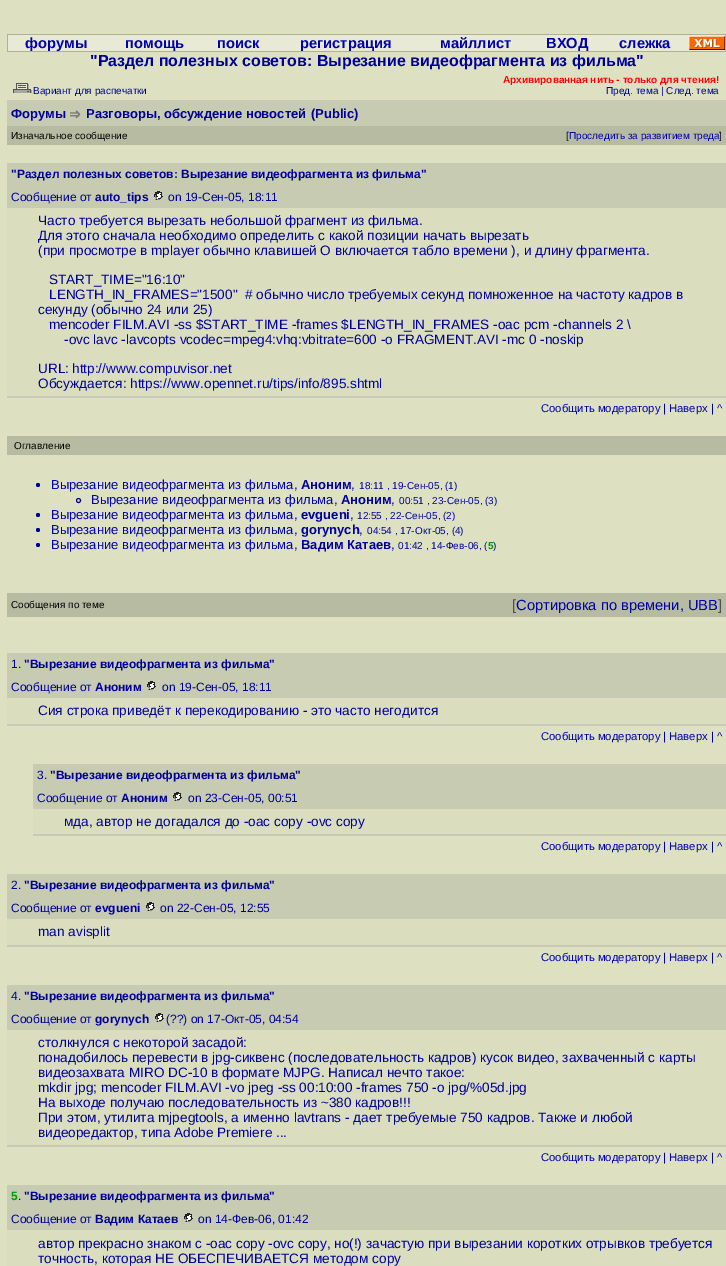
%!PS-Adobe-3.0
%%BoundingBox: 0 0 726 1266
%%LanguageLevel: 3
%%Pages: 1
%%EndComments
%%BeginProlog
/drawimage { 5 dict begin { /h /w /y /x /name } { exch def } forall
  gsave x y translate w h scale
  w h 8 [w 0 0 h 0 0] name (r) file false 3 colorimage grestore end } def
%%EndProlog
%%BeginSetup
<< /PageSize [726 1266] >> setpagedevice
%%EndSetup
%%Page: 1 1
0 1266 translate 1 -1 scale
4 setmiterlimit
0.867 0.882 0.761 setrgbcolor
0 0 726 1266 rectfill
0.69 0.694 0.565 setrgbcolor
7 34 719 18 rectfill
0.914 0.918 0.839 setrgbcolor
8 35 717 16 rectfill
(images/1.raw) 689 36 36 14 drawimage
(images/2.raw) 13 83 19 10 drawimage
0.78 0.796 0.694 setrgbcolor
7 100 719 26 rectfill
(images/3.raw) 70 110 11 8 drawimage
0.718 0.733 0.631 setrgbcolor
7 126 719 19 rectfill
0.78 0.796 0.694 setrgbcolor
7 163 719 45 rectfill
(images/4.raw) 154 191 9 9 drawimage
0.855 0.871 0.749 setrgbcolor
7 208 719 188 rectfill
0.788 0.792 0.714 setrgbcolor
7 396 719 2 rectfill
0.718 0.733 0.631 setrgbcolor
7 436 719 19 rectfill
0 0 0.6 setrgbcolor
newpath 38 485 2 0 360 arc closepath fill
newpath 78.5 500.5 2 0 360 arc closepath stroke
newpath 38 515 2 0 360 arc closepath fill
newpath 38 530 2 0 360 arc closepath fill
newpath 38 545 2 0 360 arc closepath fill
0.718 0.733 0.631 setrgbcolor
7 593 719 24 rectfill
0.78 0.796 0.694 setrgbcolor
7 653 719 45 rectfill
(images/4.raw) 147 681 9 9 drawimage
0.855 0.871 0.749 setrgbcolor
7 698 719 26 rectfill
0.788 0.792 0.714 setrgbcolor
7 724 719 2 rectfill
0.78 0.796 0.694 setrgbcolor
33 764 693 45 rectfill
(images/4.raw) 173 792 9 9 drawimage
0.855 0.871 0.749 setrgbcolor
33 809 693 25 rectfill
0.788 0.792 0.714 setrgbcolor
33 834 693 2 rectfill
0.78 0.796 0.694 setrgbcolor
7 874 719 45 rectfill
(images/4.raw) 146 902 9 9 drawimage
0.855 0.871 0.749 setrgbcolor
7 919 719 26 rectfill
0.788 0.792 0.714 setrgbcolor
7 945 719 2 rectfill
0.78 0.796 0.694 setrgbcolor
7 985 719 45 rectfill
(images/4.raw) 155 1013 9 9 drawimage
0.855 0.871 0.749 setrgbcolor
7 1030 719 115 rectfill
0.788 0.792 0.714 setrgbcolor
7 1145 719 2 rectfill
0.78 0.796 0.694 setrgbcolor
7 1185 719 45 rectfill
(images/4.raw) 184 1213 9 9 drawimage
0.855 0.871 0.749 setrgbcolor
7 1230 719 36 rectfill
/LiberationSans-Bold [14.7 0 0 -14.7 0 0] selectfont
0 0 0.678 setrgbcolor
25 48 moveto (форумы) show
125 48 moveto (помощь) show
217 48 moveto (поиск) show
300 48 moveto (регистрация) show
440 48 moveto (майллист) show
546 48 moveto (ВХОД) show
619 48 moveto (слежка) show
/LiberationSans-Bold [16 0 0 -16 0 0] selectfont
0 0 0.6 setrgbcolor
90 66 moveto ("Раздел полезных советов: Вырезание видеофрагмента из фильма") show
/LiberationSans-Regular [10 0 0 -10 0 0] selectfont
33 94 moveto (Вариант для распечатки) show
/LiberationSans-Bold [10 0 0 -10 0 0] selectfont
1 0 0 setrgbcolor
503 83 moveto (Архивированная нить - только для чтения!) show
/LiberationSans-Regular [10 0 0 -10 0 0] selectfont
0 0 0.6 setrgbcolor
606 94 moveto (Пред. тема | След. тема) show
/LiberationSans-Bold [13 0 0 -13 0 0] selectfont
11 118 moveto (Форумы) show
86 118 moveto (Разговоры, обсуждение новостей) show
311 118 moveto (\(Public\)) show
/LiberationSans-Regular [10 0 0 -10 0 0] selectfont
0 setgray
11 139 moveto (Изначальное сообщение) show
566 139 moveto ([) show
0 0 0.678 setrgbcolor
569 139 moveto (Проследить за развитием треда) show
0 setgray
719 139 moveto (]) show
/LiberationSans-Bold [12 0 0 -12 0 0] selectfont
0 0 0.6 setrgbcolor
11 178 moveto ("Раздел полезных советов: Вырезание видеофрагмента из фильма") show
/LiberationSans-Regular [12 0 0 -12 0 0] selectfont
11 201 moveto (Сообщение от) show
/LiberationSans-Bold [12 0 0 -12 0 0] selectfont
95 201 moveto (auto_tips) show
/LiberationSans-Regular [12 0 0 -12 0 0] selectfont
168 201 moveto (on 19-Сен-05, 18:11) show
/LiberationSans-Regular [13.6 0 0 -13.6 0 0] selectfont
38 225 moveto (Часто требуется вырезать небольшой фрагмент из фильма.) show
38 240 moveto (Для этого сначала необходимо определить с какой позиции начать вырезать) show
38 255 moveto (\(при просмотре в mplayer обычно клавишей O включается табло времени \), и длину фрагмента.) show
49 284 moveto (START_TIME="16:10") show
49 299 moveto (LENGTH_IN_FRAMES="1500"  # обычно число требуемых секунд помноженное на частоту кадров в) show
38 314 moveto (секунду \(обычно 24 или 25\)) show
49 329 moveto (mencoder FILM.AVI -ss $START_TIME -frames $LENGTH_IN_FRAMES -oac pcm -channels 2 \\) show
64 344 moveto (-ovc lavc -lavcopts vcodec=mpeg4:vhq:vbitrate=600 -o FRAGMENT.AVI -mc 0 -noskip) show
38 373 moveto (URL:) show
0 0 0.678 setrgbcolor
72 373 moveto (http://www.compuvisor.net) show
0 0 0.6 setrgbcolor
38 388 moveto (Обсуждается:) show
0 0 0.678 setrgbcolor
130 388 moveto (https://www.opennet.ru/tips/info/895.shtml) show
/LiberationSans-Regular [11.25 0 0 -11.25 0 0] selectfont
541 412 moveto (Cообщить модератору) show
0 0 0.6 setrgbcolor
663 412 moveto (|) show
0 0 0.678 setrgbcolor
669 412 moveto (Наверх) show
0 0 0.6 setrgbcolor
711 412 moveto (|) show
0 0 0.678 setrgbcolor
717 412 moveto (^) show
/LiberationSans-Regular [10 0 0 -10 0 0] selectfont
0 setgray
14 449 moveto (Оглавление) show
/LiberationSans-Regular [13 0 0 -13 0 0] selectfont
0 0 0.678 setrgbcolor
51 489 moveto (Вырезание видеофрагмента из фильма) show
/LiberationSans-Bold [13 0 0 -13 0 0] selectfont
0 0 0.6 setrgbcolor
301 489 moveto (Аноним) show
/LiberationSans-Regular [10 0 0 -10 0 0] selectfont
359 489 moveto (18:11 , 19-Сен-05, \(1\)) show
/LiberationSans-Regular [13 0 0 -13 0 0] selectfont
294 489 moveto (,) show
351 489 moveto (,) show
0 0 0.678 setrgbcolor
91 504 moveto (Вырезание видеофрагмента из фильма) show
/LiberationSans-Bold [13 0 0 -13 0 0] selectfont
0 0 0.6 setrgbcolor
341 504 moveto (Аноним) show
/LiberationSans-Regular [10 0 0 -10 0 0] selectfont
399 504 moveto (00:51 , 23-Сен-05, \(3\)) show
/LiberationSans-Regular [13 0 0 -13 0 0] selectfont
334 504 moveto (,) show
391 504 moveto (,) show
0 0 0.678 setrgbcolor
51 519 moveto (Вырезание видеофрагмента из фильма) show
/LiberationSans-Bold [13 0 0 -13 0 0] selectfont
0 0 0.6 setrgbcolor
301 519 moveto (evgueni) show
/LiberationSans-Regular [10 0 0 -10 0 0] selectfont
357 519 moveto (12:55 , 22-Сен-05, \(2\)) show
/LiberationSans-Regular [13 0 0 -13 0 0] selectfont
294 519 moveto (,) show
350 519 moveto (,) show
0 0 0.678 setrgbcolor
51 534 moveto (Вырезание видеофрагмента из фильма) show
/LiberationSans-Bold [13 0 0 -13 0 0] selectfont
0 0 0.6 setrgbcolor
301 534 moveto (gorynych) show
/LiberationSans-Regular [10 0 0 -10 0 0] selectfont
367 534 moveto (04:54 , 17-Окт-05, \(4\)) show
/LiberationSans-Regular [13 0 0 -13 0 0] selectfont
294 534 moveto (,) show
359 534 moveto (,) show
0 0 0.678 setrgbcolor
51 549 moveto (Вырезание видеофрагмента из фильма) show
/LiberationSans-Bold [13 0 0 -13 0 0] selectfont
0 0 0.6 setrgbcolor
301 549 moveto (Вадим Катаев) show
/LiberationSans-Regular [10 0 0 -10 0 0] selectfont
398 549 moveto (01:42 , 14-Фев-06, \() show
/LiberationSans-Bold [10 0 0 -10 0 0] selectfont
0 0.627 0 setrgbcolor
488 549 moveto (5) show
/LiberationSans-Regular [10 0 0 -10 0 0] selectfont
0 0 0.6 setrgbcolor
493 549 moveto (\)) show
/LiberationSans-Regular [13 0 0 -13 0 0] selectfont
294 549 moveto (,) show
391 549 moveto (,) show
/LiberationSans-Regular [10 0 0 -10 0 0] selectfont
0 setgray
11 608 moveto (Сообщения по теме) show
/LiberationSans-Regular [14.7 0 0 -14.7 0 0] selectfont
0.314 setgray
512 610 moveto ([) show
0 0 0.678 setrgbcolor
516 610 moveto (Сортировка по времени, UBB) show
0.314 setgray
718 610 moveto (]) show
/LiberationSans-Regular [12 0 0 -12 0 0] selectfont
0 0 0.6 setrgbcolor
11 668 moveto (1.) show
/LiberationSans-Bold [12 0 0 -12 0 0] selectfont
24 668 moveto ("Вырезание видеофрагмента из фильма") show
/LiberationSans-Regular [12 0 0 -12 0 0] selectfont
11 691 moveto (Сообщение от) show
/LiberationSans-Bold [12 0 0 -12 0 0] selectfont
95 691 moveto (Аноним) show
/LiberationSans-Regular [12 0 0 -12 0 0] selectfont
162 691 moveto (on 19-Сен-05, 18:11) show
/LiberationSans-Regular [13.6 0 0 -13.6 0 0] selectfont
38 715 moveto (Сия строка приведёт к перекодированию - это часто негодится) show
/LiberationSans-Regular [11.25 0 0 -11.25 0 0] selectfont
0 0 0.678 setrgbcolor
541 740 moveto (Cообщить модератору) show
0 0 0.6 setrgbcolor
663 740 moveto (|) show
0 0 0.678 setrgbcolor
669 740 moveto (Наверх) show
0 0 0.6 setrgbcolor
711 740 moveto (|) show
0 0 0.678 setrgbcolor
717 740 moveto (^) show
/LiberationSans-Regular [12 0 0 -12 0 0] selectfont
0 0 0.6 setrgbcolor
37 779 moveto (3.) show
/LiberationSans-Bold [12 0 0 -12 0 0] selectfont
50 779 moveto ("Вырезание видеофрагмента из фильма") show
/LiberationSans-Regular [12 0 0 -12 0 0] selectfont
37 802 moveto (Сообщение от) show
/LiberationSans-Bold [12 0 0 -12 0 0] selectfont
121 802 moveto (Аноним) show
/LiberationSans-Regular [12 0 0 -12 0 0] selectfont
188 802 moveto (on 23-Сен-05, 00:51) show
/LiberationSans-Regular [13.6 0 0 -13.6 0 0] selectfont
64 826 moveto (мда, автор не догадался до -oac copy -ovc copy) show
/LiberationSans-Regular [11.25 0 0 -11.25 0 0] selectfont
0 0 0.678 setrgbcolor
541 850 moveto (Cообщить модератору) show
0 0 0.6 setrgbcolor
663 850 moveto (|) show
0 0 0.678 setrgbcolor
669 850 moveto (Наверх) show
0 0 0.6 setrgbcolor
711 850 moveto (|) show
0 0 0.678 setrgbcolor
717 850 moveto (^) show
/LiberationSans-Regular [12 0 0 -12 0 0] selectfont
0 0 0.6 setrgbcolor
11 889 moveto (2.) show
/LiberationSans-Bold [12 0 0 -12 0 0] selectfont
24 889 moveto ("Вырезание видеофрагмента из фильма") show
/LiberationSans-Regular [12 0 0 -12 0 0] selectfont
11 912 moveto (Сообщение от) show
/LiberationSans-Bold [12 0 0 -12 0 0] selectfont
95 912 moveto (evgueni) show
/LiberationSans-Regular [12 0 0 -12 0 0] selectfont
160 912 moveto (on 22-Сен-05, 12:55) show
/LiberationSans-Regular [13.6 0 0 -13.6 0 0] selectfont
38 936 moveto (man avisplit) show
/LiberationSans-Regular [11.25 0 0 -11.25 0 0] selectfont
0 0 0.678 setrgbcolor
541 961 moveto (Cообщить модератору) show
0 0 0.6 setrgbcolor
663 961 moveto (|) show
0 0 0.678 setrgbcolor
669 961 moveto (Наверх) show
0 0 0.6 setrgbcolor
711 961 moveto (|) show
0 0 0.678 setrgbcolor
717 961 moveto (^) show
/LiberationSans-Regular [12 0 0 -12 0 0] selectfont
0 0 0.6 setrgbcolor
11 1000 moveto (4.) show
/LiberationSans-Bold [12 0 0 -12 0 0] selectfont
24 1000 moveto ("Вырезание видеофрагмента из фильма") show
/LiberationSans-Regular [12 0 0 -12 0 0] selectfont
11 1023 moveto (Сообщение от) show
/LiberationSans-Bold [12 0 0 -12 0 0] selectfont
95 1023 moveto (gorynych) show
/LiberationSans-Regular [12 0 0 -12 0 0] selectfont
166 1023 moveto (\(??\) on 17-Окт-05, 04:54) show
/LiberationSans-Regular [13.6 0 0 -13.6 0 0] selectfont
38 1047 moveto (столкнулся с некоторой засадой:) show
38 1062 moveto (понадобилось перевести в jpg-сиквенс \(последовательность кадров\) кусок видео, захваченный с карты) show
38 1077 moveto (видеозахвата MIRO DC-10 в формате MJPG. Написал нечто такое:) show
38 1092 moveto (mkdir jpg; mencoder FILM.AVI -vo jpeg -ss 00:10:00 -frames 750 -o jpg/%05d.jpg) show
38 1107 moveto (На выходе получаю последовательность из ~380 кадров!!!) show
38 1122 moveto (При этом, утилита mjpegtools, а именно lavtrans - дает требуемые 750 кадров. Также и любой) show
38 1137 moveto (видеоредактор, типа Adobe Premiere ...) show
/LiberationSans-Regular [11.25 0 0 -11.25 0 0] selectfont
0 0 0.678 setrgbcolor
541 1161 moveto (Cообщить модератору) show
0 0 0.6 setrgbcolor
663 1161 moveto (|) show
0 0 0.678 setrgbcolor
669 1161 moveto (Наверх) show
0 0 0.6 setrgbcolor
711 1161 moveto (|) show
0 0 0.678 setrgbcolor
717 1161 moveto (^) show
/LiberationSans-Bold [12 0 0 -12 0 0] selectfont
0 0.627 0 setrgbcolor
11 1200 moveto (5) show
/LiberationSans-Regular [12 0 0 -12 0 0] selectfont
0 0 0.6 setrgbcolor
18 1200 moveto (.) show
/LiberationSans-Bold [12 0 0 -12 0 0] selectfont
24 1200 moveto ("Вырезание видеофрагмента из фильма") show
/LiberationSans-Regular [12 0 0 -12 0 0] selectfont
11 1223 moveto (Сообщение от) show
/LiberationSans-Bold [12 0 0 -12 0 0] selectfont
95 1223 moveto (Вадим Катаев) show
/LiberationSans-Regular [12 0 0 -12 0 0] selectfont
198 1223 moveto (on 14-Фев-06, 01:42) show
/LiberationSans-Regular [13.6 0 0 -13.6 0 0] selectfont
38 1248 moveto (автор прекрасно знаком с -oac copy -ovc copy, но\(!\) зачастую при вырезании коротких отрывков требуется) show
38 1263 moveto (точность, которая НЕ ОБЕСПЕЧИВАЕТСЯ методом copy) show
showpage
%%EOF
